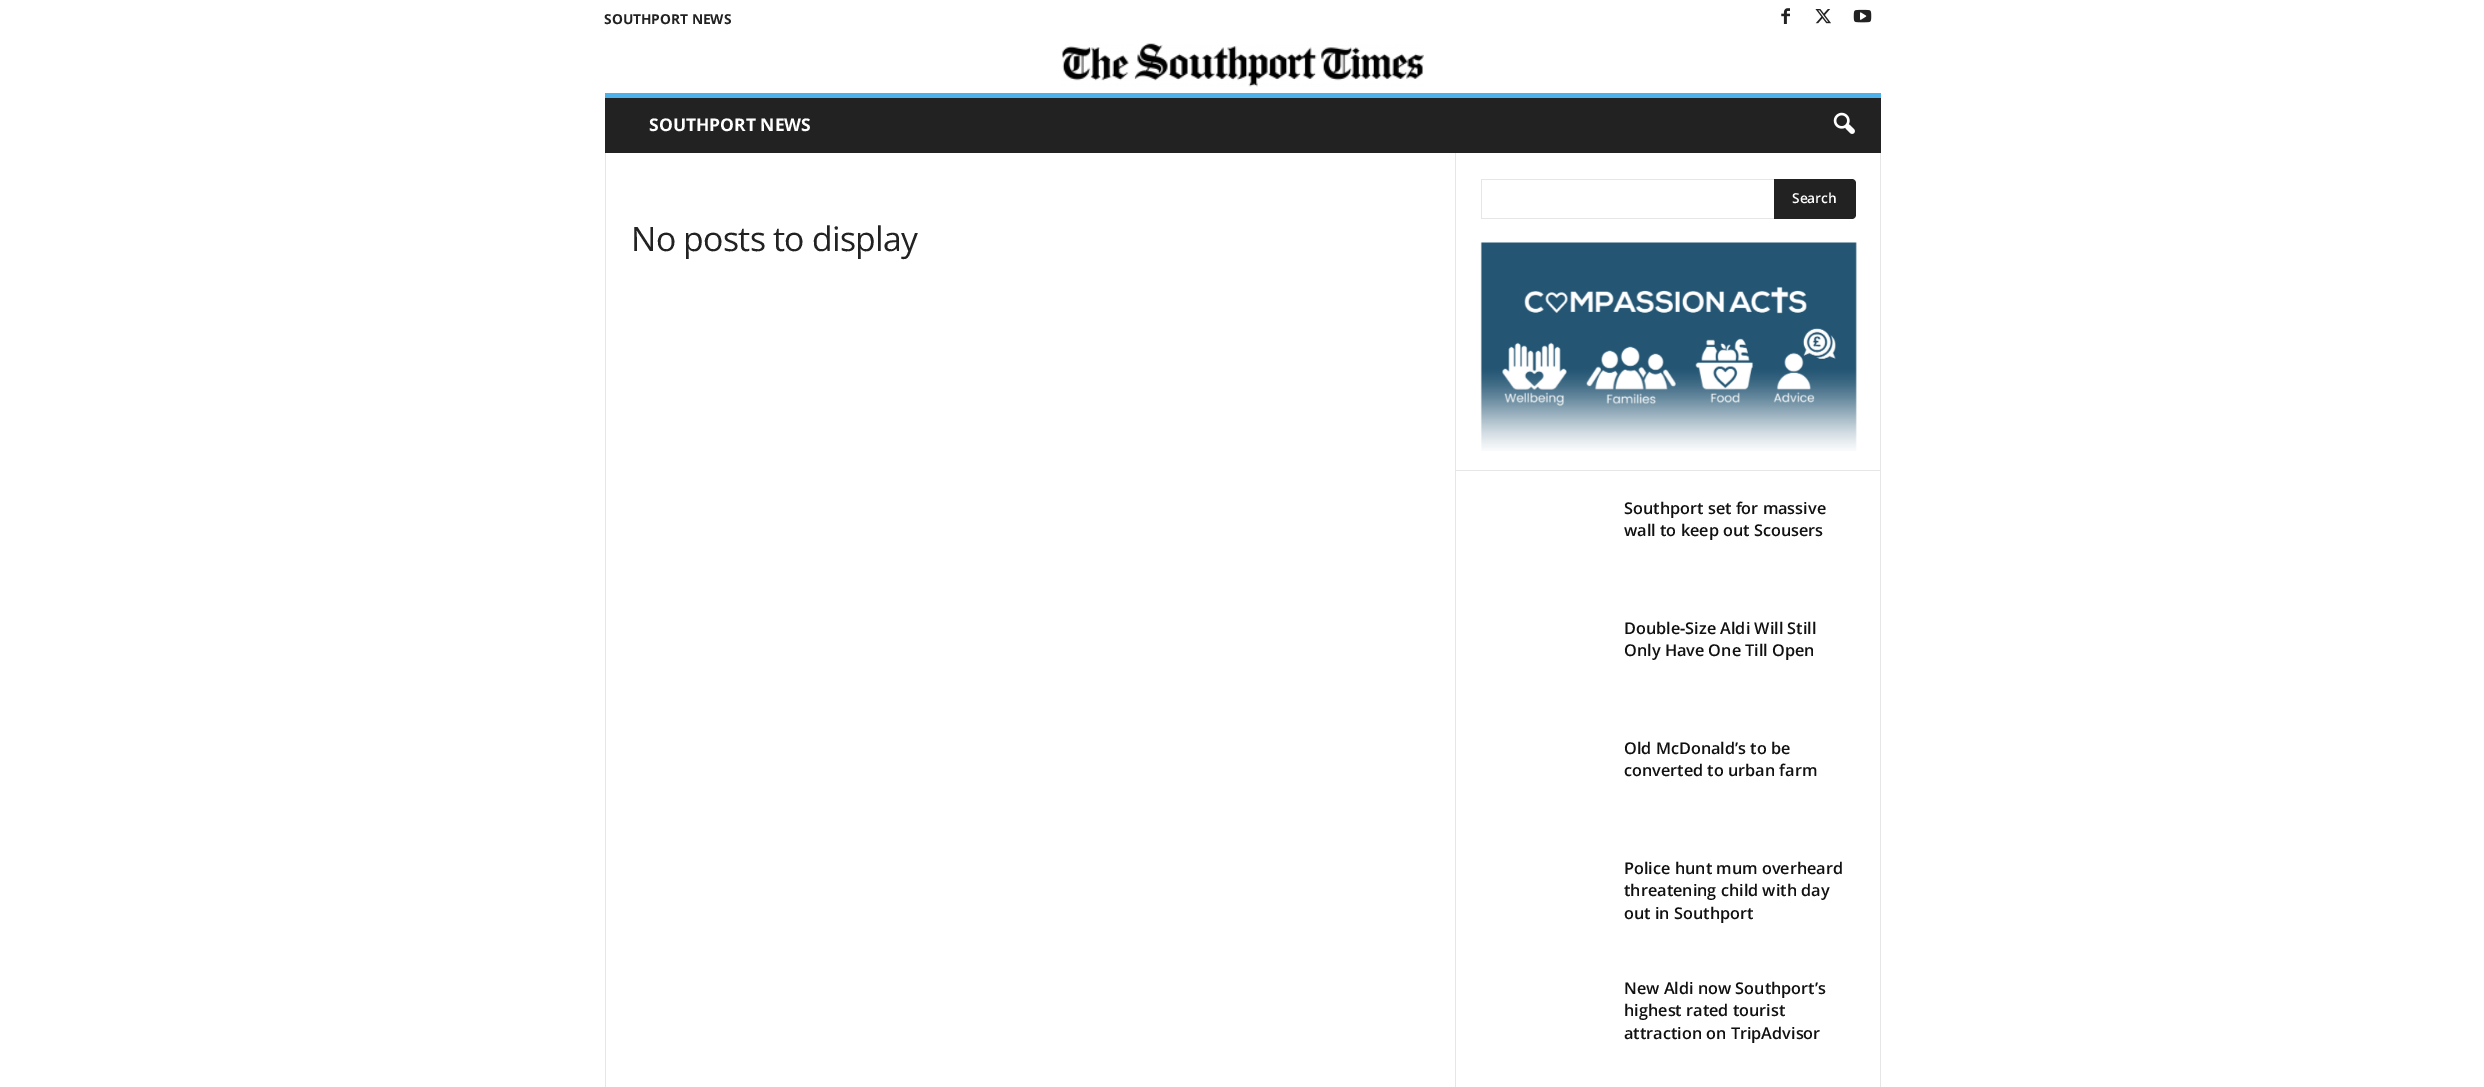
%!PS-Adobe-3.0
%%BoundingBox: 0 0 2484 1087
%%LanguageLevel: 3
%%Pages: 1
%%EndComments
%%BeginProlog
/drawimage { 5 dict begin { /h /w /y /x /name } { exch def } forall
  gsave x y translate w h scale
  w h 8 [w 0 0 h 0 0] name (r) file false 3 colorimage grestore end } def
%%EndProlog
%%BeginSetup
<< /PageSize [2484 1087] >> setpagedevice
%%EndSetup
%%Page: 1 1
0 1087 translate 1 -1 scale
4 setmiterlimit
1 setgray
0 0 2484 1087 rectfill
(images/1.raw) 1781 8 9 16 drawimage
(images/2.raw) 1815 9 16 15 drawimage
(images/3.raw) 1853 9 19 14 drawimage
(images/4.raw) 1061 43 363 44 drawimage
0.133 setgray
605 98 1276 55 rectfill
0.302 0.698 0.925 setrgbcolor
605 93 1276 5 rectfill
(images/5.raw) 1833 112 22 22 drawimage
0.902 setgray
605 153 1 934 rectfill
1455 153 1 934 rectfill
1481 179 293 1 rectfill
1481 218 293 1 rectfill
1481 179 1 40 rectfill
0.133 setgray
newpath 1774 179 moveto 1852 179 lineto 1854 179 1856 181 1856 183 curveto 1856 215 lineto 1856 217 1854 219 1852 219 curveto 1774 219 lineto closepath fill
(images/6.raw) 1480 242 377 209 drawimage
0.902 setgray
1456 470 424 1 rectfill
1880 153 1 934 rectfill
/OpenSans-Bold [13.75 0 0 -13.75 0 0] selectfont
0.133 setgray
604 24 moveto (SOUTHPORT NEWS) show
/OpenSans-Bold [17.5 0 0 -17.5 0 0] selectfont
1 setgray
649 131 moveto (SOUTHPORT NEWS) show
/OpenSans-Regular [33.75 0 0 -33.75 0 0] selectfont
0.133 setgray
631 251 moveto -0.7 0 (No posts to display) ashow
/OpenSans-SemiBold [13.75 0 0 -13.75 0 0] selectfont
1 setgray
1792 203 moveto (Search) show
/OpenSans-SemiBold [16.25 0 0 -16.25 0 0] selectfont
0.067 setgray
1624 514 moveto (Southport set for massive) show
1624 536 moveto (wall to keep out Scousers) show
1624 634 moveto (Double-Size Aldi Will Still) show
1624 656 moveto (Only Have One Till Open) show
1624 754 moveto (Old McDonald’s to be) show
1624 776 moveto (converted to urban farm) show
1624 874 moveto (Police hunt mum overheard) show
1624 896 moveto (threatening child with day) show
1624 919 moveto (out in Southport) show
1624 994 moveto (New Aldi now Southport’s) show
1624 1016 moveto (highest rated tourist) show
1624 1039 moveto (attraction on TripAdvisor) show
showpage
%%EOF
